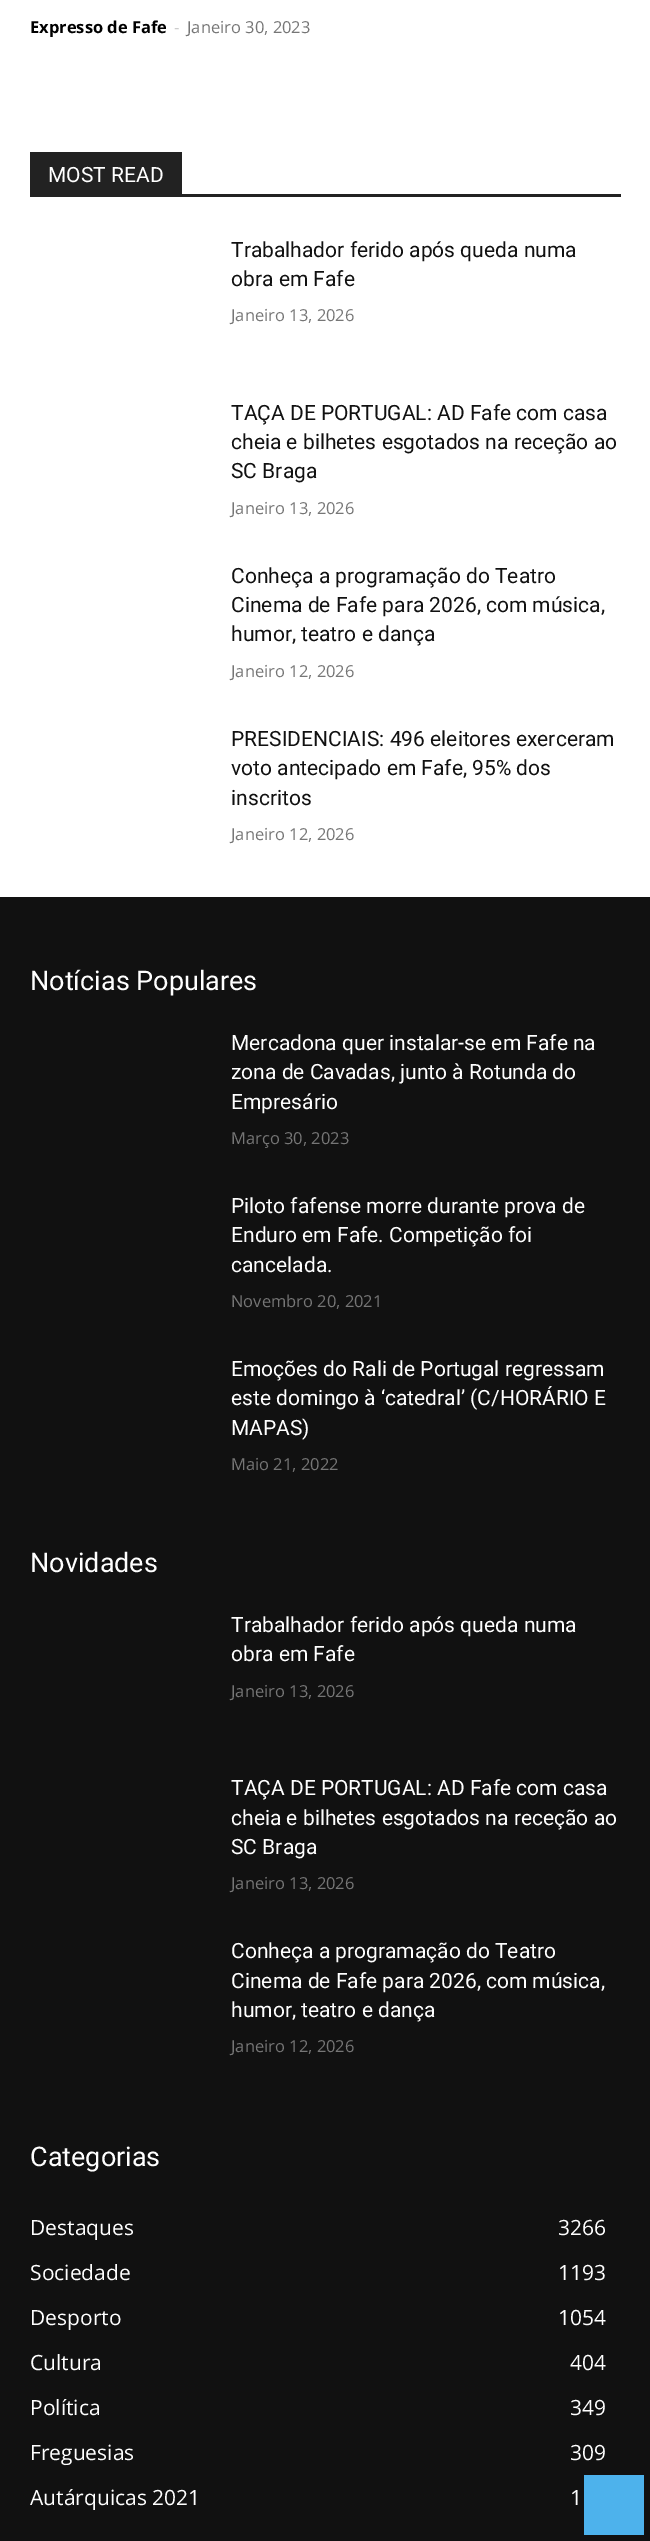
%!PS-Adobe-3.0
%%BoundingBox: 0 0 650 2541
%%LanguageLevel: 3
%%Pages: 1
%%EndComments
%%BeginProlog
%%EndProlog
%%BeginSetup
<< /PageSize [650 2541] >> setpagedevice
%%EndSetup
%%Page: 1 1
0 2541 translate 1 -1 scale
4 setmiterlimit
1 setgray
0 0 650 2541 rectfill
0.133 setgray
30 194 591 3 rectfill
30 152 152 42 rectfill
0.067 setgray
0 897 650 1644 rectfill
0.302 0.698 0.925 setrgbcolor
584 2475 60 60 rectfill
/OpenSans-Bold [16.5 0 0 -16.5 0 0] selectfont
0 setgray
30 33 moveto (Expresso de Fafe) show
/OpenSans-Regular [16.5 0 0 -16.5 0 0] selectfont
0.8 setgray
174 33 moveto (-) show
0.463 setgray
187 33 moveto (Janeiro 30, 2023) show
/Roboto-Regular [21 0 0 -21 0 0] selectfont
1 setgray
48 182 moveto (MOST READ) show
0.067 setgray
231 257 moveto (Trabalhador ferido após queda numa) show
231 286 moveto (obra em Fafe) show
/OpenSans-Regular [16.5 0 0 -16.5 0 0] selectfont
0.463 setgray
231 321 moveto (Janeiro 13, 2026) show
/Roboto-Regular [21 0 0 -21 0 0] selectfont
0.067 setgray
231 420 moveto (TAÇA DE PORTUGAL: AD Fafe com casa) show
231 449 moveto (cheia e bilhetes esgotados na receção ao) show
231 478 moveto (SC Braga) show
/OpenSans-Regular [16.5 0 0 -16.5 0 0] selectfont
0.463 setgray
231 514 moveto (Janeiro 13, 2026) show
/Roboto-Regular [21 0 0 -21 0 0] selectfont
0.067 setgray
231 583 moveto (Conheça a programação do Teatro) show
231 612 moveto (Cinema de Fafe para 2026, com música,) show
231 641 moveto (humor, teatro e dança) show
/OpenSans-Regular [16.5 0 0 -16.5 0 0] selectfont
0.463 setgray
231 677 moveto (Janeiro 12, 2026) show
/Roboto-Regular [21 0 0 -21 0 0] selectfont
0.067 setgray
231 746 moveto (PRESIDENCIAIS: 496 eleitores exerceram) show
231 775 moveto (voto antecipado em Fafe, 95% dos) show
231 805 moveto (inscritos) show
/OpenSans-Regular [16.5 0 0 -16.5 0 0] selectfont
0.463 setgray
231 840 moveto (Janeiro 12, 2026) show
/Roboto-Regular [27 0 0 -27 0 0] selectfont
1 setgray
30 990 moveto (Notícias Populares) show
/Roboto-Regular [21 0 0 -21 0 0] selectfont
231 1050 moveto (Mercadona quer instalar-se em Fafe na) show
231 1079 moveto (zona de Cavadas, junto à Rotunda do) show
231 1109 moveto (Empresário) show
/OpenSans-Regular [16.5 0 0 -16.5 0 0] selectfont
0.463 setgray
231 1144 moveto (Março 30, 2023) show
/Roboto-Regular [21 0 0 -21 0 0] selectfont
1 setgray
231 1213 moveto (Piloto fafense morre durante prova de) show
231 1242 moveto (Enduro em Fafe. Competição foi) show
231 1272 moveto (cancelada.) show
/OpenSans-Regular [16.5 0 0 -16.5 0 0] selectfont
0.463 setgray
231 1307 moveto (Novembro 20, 2021) show
/Roboto-Regular [21 0 0 -21 0 0] selectfont
1 setgray
231 1376 moveto (Emoções do Rali de Portugal regressam) show
231 1405 moveto (este domingo à ‘catedral’ \(C/HORÁRIO E) show
231 1435 moveto (MAPAS\)) show
/OpenSans-Regular [16.5 0 0 -16.5 0 0] selectfont
0.463 setgray
231 1470 moveto (Maio 21, 2022) show
/Roboto-Regular [27 0 0 -27 0 0] selectfont
1 setgray
30 1572 moveto (Novidades) show
/Roboto-Regular [21 0 0 -21 0 0] selectfont
231 1632 moveto (Trabalhador ferido após queda numa) show
231 1661 moveto (obra em Fafe) show
/OpenSans-Regular [16.5 0 0 -16.5 0 0] selectfont
0.463 setgray
231 1697 moveto (Janeiro 13, 2026) show
/Roboto-Regular [21 0 0 -21 0 0] selectfont
1 setgray
231 1795 moveto (TAÇA DE PORTUGAL: AD Fafe com casa) show
231 1825 moveto (cheia e bilhetes esgotados na receção ao) show
231 1854 moveto (SC Braga) show
/OpenSans-Regular [16.5 0 0 -16.5 0 0] selectfont
0.463 setgray
231 1889 moveto (Janeiro 13, 2026) show
/Roboto-Regular [21 0 0 -21 0 0] selectfont
1 setgray
231 1958 moveto (Conheça a programação do Teatro) show
231 1988 moveto (Cinema de Fafe para 2026, com música,) show
231 2017 moveto (humor, teatro e dança) show
/OpenSans-Regular [16.5 0 0 -16.5 0 0] selectfont
0.463 setgray
231 2052 moveto (Janeiro 12, 2026) show
/Roboto-Regular [27 0 0 -27 0 0] selectfont
1 setgray
30 2166 moveto (Categorias) show
/OpenSans-Regular [21 0 0 -21 0 0] selectfont
30 2235 moveto (Destaques) show
558 2235 moveto (3266) show
30 2280 moveto (Sociedade) show
558 2280 moveto (1193) show
30 2325 moveto (Desporto) show
558 2325 moveto (1054) show
30 2370 moveto (Cultura) show
570 2370 moveto (404) show
30 2415 moveto (Política) show
570 2415 moveto (349) show
30 2460 moveto (Freguesias) show
570 2460 moveto (309) show
30 2505 moveto (Autárquicas 2021) show
570 2505 moveto (1) show
showpage
%%EOF
